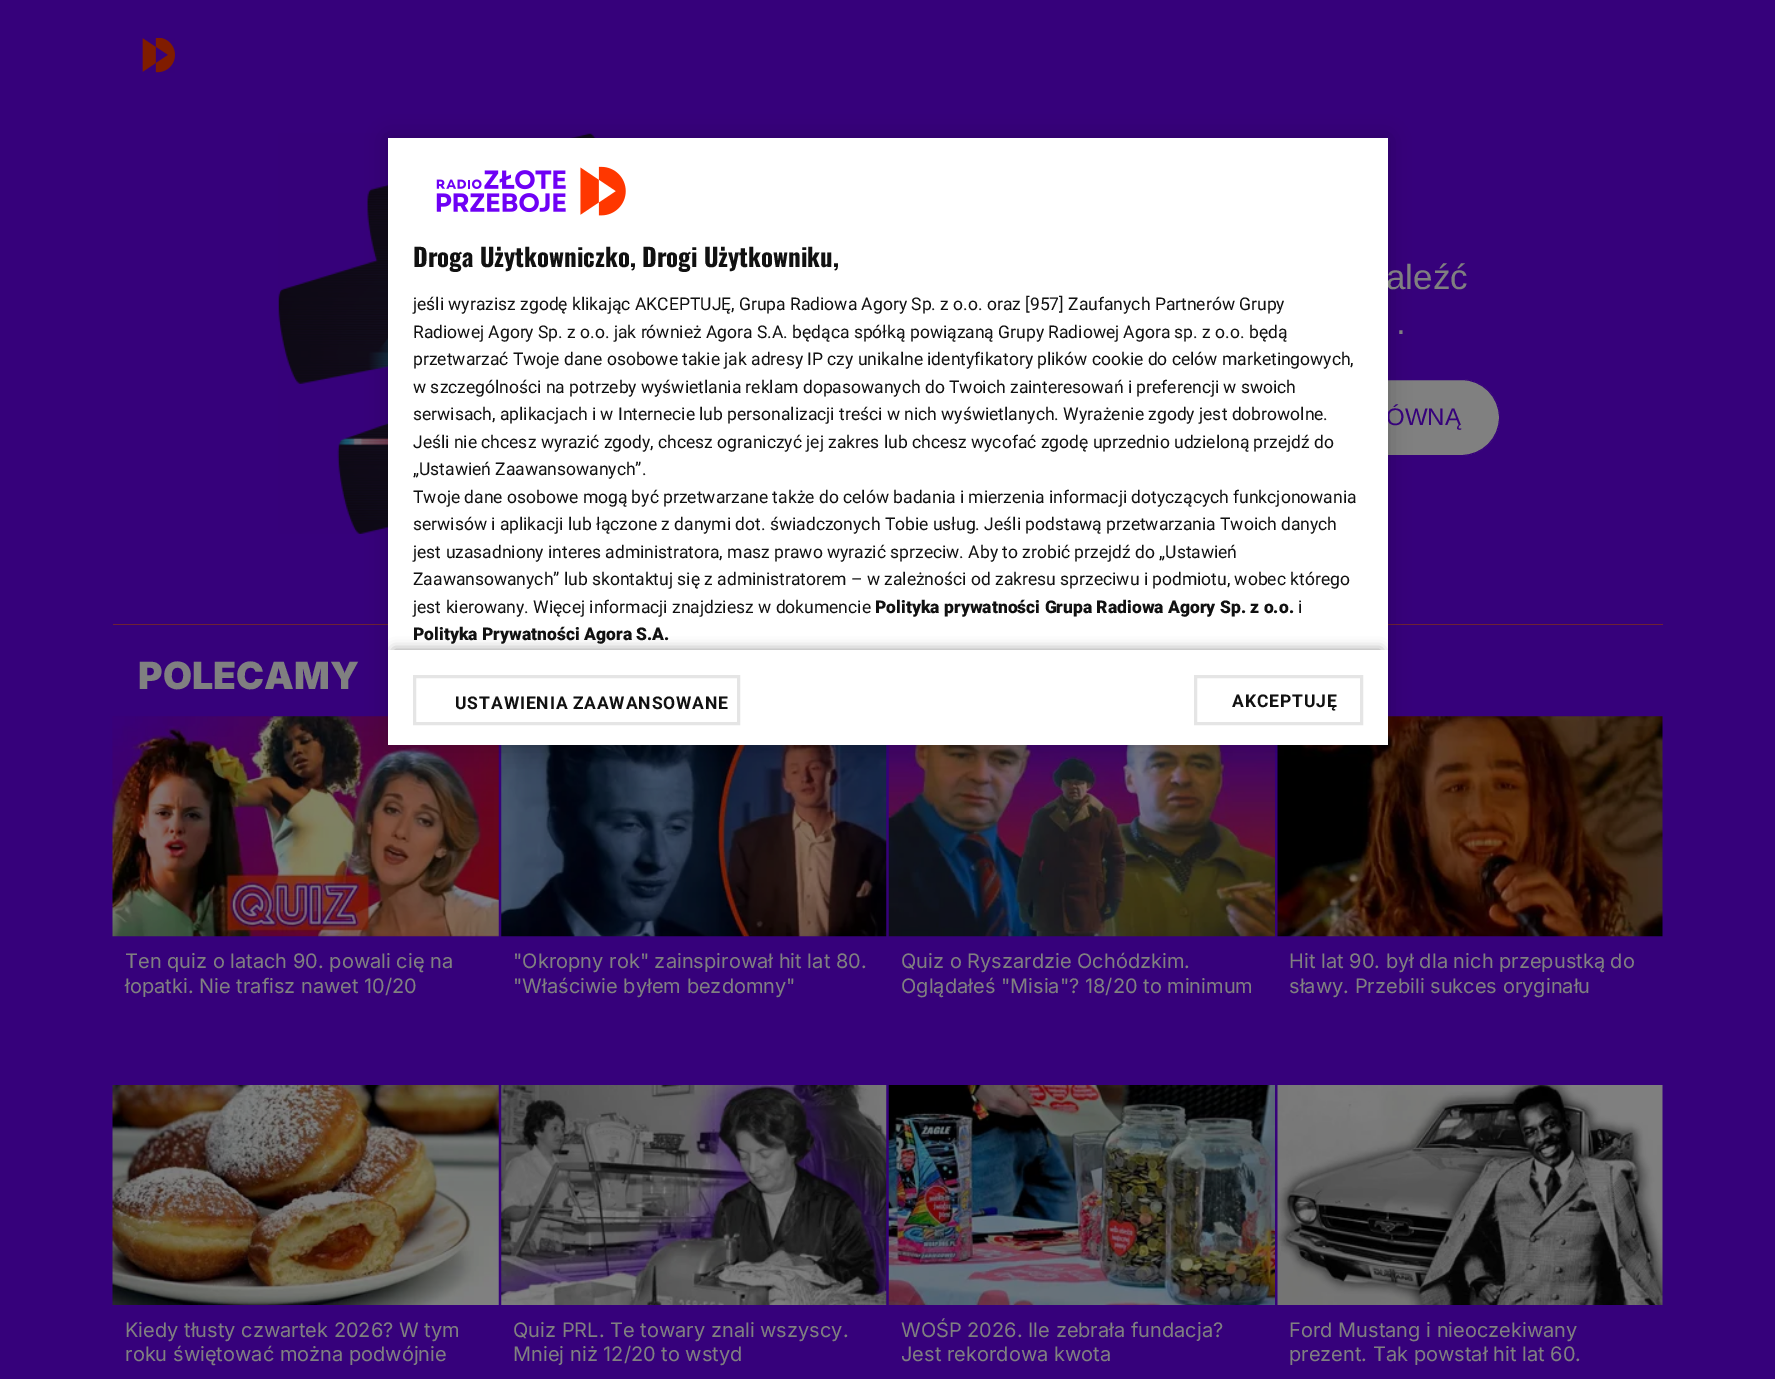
%!PS-Adobe-3.0
%%BoundingBox: 0 0 1775 1379
%%LanguageLevel: 3
%%Pages: 1
%%EndComments
%%BeginProlog
/setalpha { dup .setfillconstantalpha .setstrokeconstantalpha } def
/rrect { 5 dict begin { /r /h /w /y /x } { exch def } forall
  x r add y moveto x w add y 2 copy h add r arct x w add y h add x 1 index r arct
  x y h add x y r arct x y 2 copy exch w add exch r arct closepath end } def
/softshadow { 12 dict begin { /a /b /q /h /w /y /x } { exch def } forall gsave /was 0 def
  9 -2 -9 { dup b mul 4 div /e exch def 1 sub .425 mul 2.718 exch exp 1 add a .99 .min exch div /now exch def
    1 1 now sub 1 was sub div sub setalpha /was now def
    w h .min e 2 mul add 0 gt { x e sub y e sub w e 2 mul add h e 2 mul add
      q e add b .6 mul add w h .min 2 div e add .min 0 .max rrect fill } if } for grestore end } def
/drawimage { 5 dict begin { /h /w /y /x /name } { exch def } forall
  gsave x y translate w h scale
  w h 8 [w 0 0 h 0 0] name (r) file false 3 colorimage grestore end } def
%%EndProlog
%%BeginSetup
<< /PageSize [1775 1379] /PageUsesTransparency true >> setpagedevice
%%EndSetup
%%Page: 1 1
0 .pushpdf14devicefilter
0 1379 translate 1 -1 scale
4 setmiterlimit
0.212 0.004 0.482 setrgbcolor
0 0 1775 1379 rectfill
(images/1.raw) 142 38 33 35 drawimage
(images/3.raw) 278 133 318 401 drawimage
0.502 setgray
1058.5 379.5 441 76 38 rrect gsave fill grestore
0.212 0.004 0.482 setrgbcolor
stroke
0.427 0.133 0.204 setrgbcolor
113 624 1550 1 rectfill
(images/4.raw) 112 716 387 221 drawimage
(images/5.raw) 501 745 386 192 drawimage
(images/6.raw) 888 745 387 192 drawimage
(images/7.raw) 1277 716 386 221 drawimage
0 setgray
388 138 1000 607 0 11 0.2 softshadow
(images/8.raw) 112 1085 387 220 drawimage
(images/9.raw) 501 1085 386 220 drawimage
(images/10.raw) 888 1085 387 220 drawimage
(images/11.raw) 1277 1085 386 220 drawimage
/LiberationSans-Regular [35 0 0 -35 0 0] selectfont
0.502 setgray
1386 289 moveto (aleźć) show
1396 334 moveto (.) show
/LiberationSans-Regular [24 0 0 -24 0 0] selectfont
0.212 0.004 0.482 setrgbcolor
1386 425 moveto (ÓWNĄ) show
1 setgray
388 138 1000 607 rectfill
gsave
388 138 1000 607 rectclip
newpath 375 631 moveto 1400 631 lineto 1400 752 lineto 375 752 lineto closepath 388 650 moveto 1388 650 lineto 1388 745 lineto 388 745 lineto closepath eoclip newpath
0.451 setgray
394 650 987 83 0 6 0.75 softshadow
grestore
0.898 setgray
3 setlinewidth
1195.5 676.5 166 47 rectstroke
/Roboto-Bold [17.5 0 0 -17.5 0 0] selectfont
0.067 setgray
1232 707 moveto 0.9 0 (AKCEPTUJĘ) ashow
(images/2.raw) 436 166 190 50 drawimage
/Roboto-Black [17.5 0 0 -17.5 0 0] selectfont
413 640 moveto (Polityka Prywatności Agora S.A.) show
/Roboto-Regular [17.5 0 0 -17.5 0 0] selectfont
1298 613 moveto (i) show
/Roboto-Black [17.5 0 0 -17.5 0 0] selectfont
875 613 moveto (Polityka prywatności Grupa Radiowa Agory Sp. z o.o.) show
/Roboto-Regular [17.5 0 0 -17.5 0 0] selectfont
413 613 moveto (jest kierowany. Więcej informacji znajdziesz w dokumencie) show
413 585 moveto (Zaawansowanych” lub skontaktuj się z administratorem – w zależności od zakresu sprzeciwu i podmiotu, wobec którego) show
413 558 moveto (jest uzasadniony interes administratora, masz prawo wyrazić sprzeciw. Aby to zrobić przejdź do „Ustawień) show
413 530 moveto (serwisów i aplikacji lub łączone z danymi dot. świadczonych Tobie usług. Jeśli podstawą przetwarzania Twoich danych) show
413 503 moveto (Twoje dane osobowe mogą być przetwarzane także do celów badania i mierzenia informacji dotyczących funkcjonowania) show
413 475 moveto („Ustawień Zaawansowanych”.) show
413 448 moveto (Jeśli nie chcesz wyrazić zgody, chcesz ograniczyć jej zakres lub chcesz wycofać zgodę uprzednio udzieloną przejdź do) show
413 420 moveto (serwisach, aplikacjach i w Internecie lub personalizacji treści w nich wyświetlanych. Wyrażenie zgody jest dobrowolne.) show
413 393 moveto (w szczególności na potrzeby wyświetlania reklam dopasowanych do Twoich zainteresowań i preferencji w swoich) show
413 365 moveto (przetwarzać Twoje dane osobowe takie jak adresy IP czy unikalne identyfikatory plików cookie do celów marketingowych,) show
413 338 moveto (Radiowej Agory Sp. z o.o. jak również Agora S.A. będąca spółką powiązaną Grupy Radiowej Agora sp. z o.o. będą) show
413 310 moveto (jeśli wyrazisz zgodę klikając AKCEPTUJĘ, Grupa Radiowa Agory Sp. z o.o. oraz [957] Zaufanych Partnerów Grupy) show
/Oswald-Bold [25 0 0 -25 0 0] selectfont
413 267 moveto (Droga Użytkowniczko, Drogi Użytkowniku,) show
0.898 setgray
414.5 676.5 324 47 rectstroke
/Roboto-Bold [17.5 0 0 -17.5 0 0] selectfont
0.067 setgray
455 709 moveto -1 0 32 0.9 0 (USTAWIENIA ZAAWANSOWANE) awidthshow
/Inter-Black [37.5 0 0 -37.5 0 0] selectfont
0.502 setgray
138 689 moveto (POLECAMY) show
/Inter-Regular [20 0 0 -20 0 0] selectfont
125 968 moveto (Ten quiz o latach 90. powali cię na) show
125 993 moveto (łopatki. Nie trafisz nawet 10/20) show
513 968 moveto ("Okropny rok" zainspirował hit lat 80.) show
513 993 moveto ("Właściwie byłem bezdomny") show
901 968 moveto (Quiz o Ryszardzie Ochódzkim.) show
901 993 moveto (Oglądałeś "Misia"? 18/20 to minimum) show
1289 968 moveto (Hit lat 90. był dla nich przepustką do) show
1289 993 moveto (sławy. Przebili sukces oryginału) show
125 1337 moveto (Kiedy tłusty czwartek 2026? W tym) show
125 1361 moveto (roku świętować można podwójnie) show
513 1337 moveto (Quiz PRL. Te towary znali wszyscy.) show
513 1361 moveto (Mniej niż 12/20 to wstyd) show
901 1337 moveto (WOŚP 2026. Ile zebrała fundacja?) show
901 1361 moveto (Jest rekordowa kwota) show
1289 1337 moveto (Ford Mustang i nieoczekiwany) show
1289 1361 moveto (prezent. Tak powstał hit lat 60.) show
.poppdf14devicefilter showpage
%%EOF
